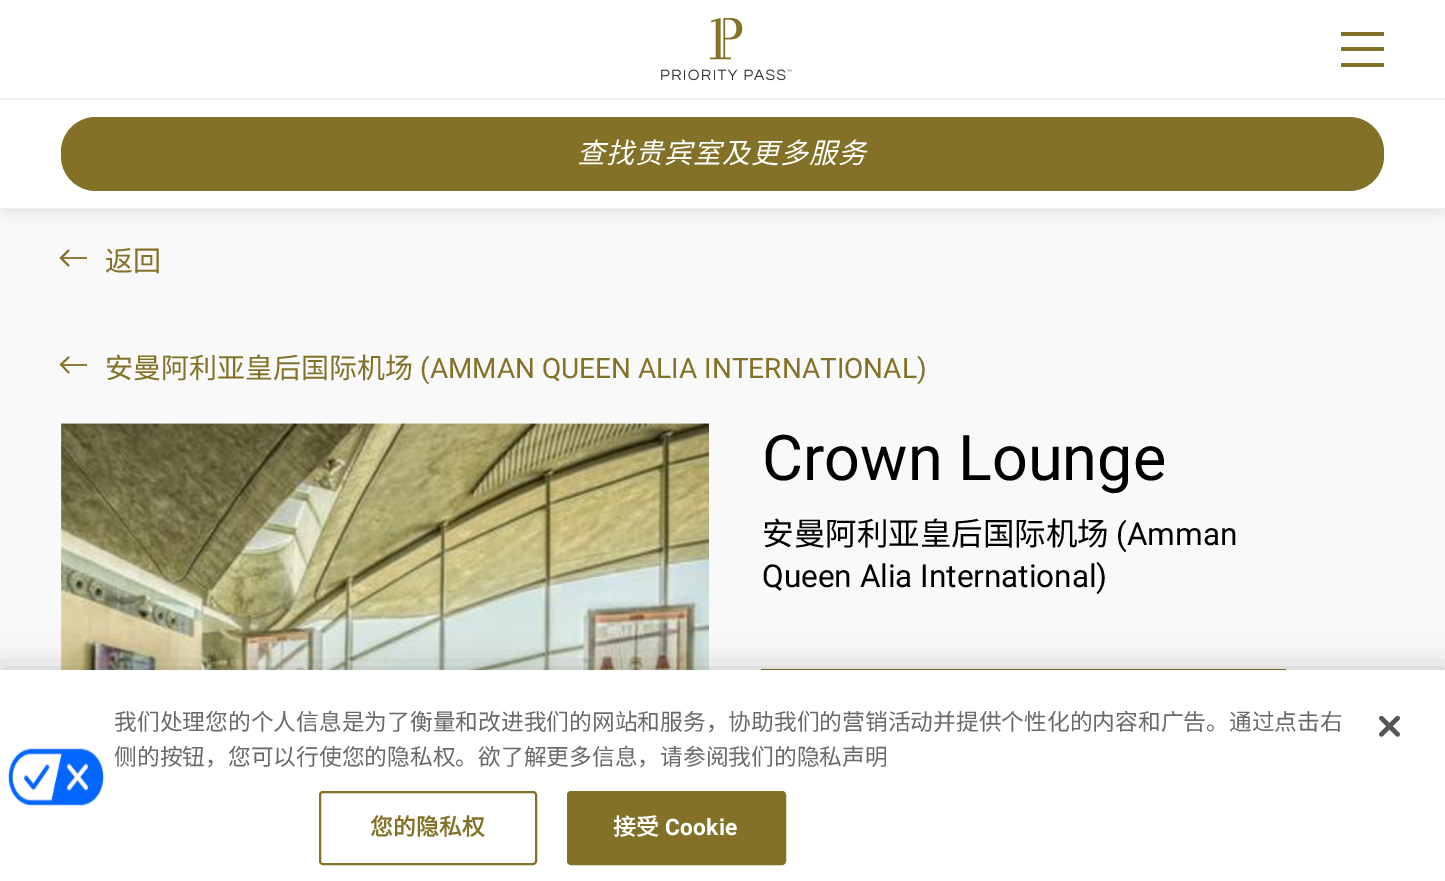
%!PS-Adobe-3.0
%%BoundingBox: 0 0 1445 881
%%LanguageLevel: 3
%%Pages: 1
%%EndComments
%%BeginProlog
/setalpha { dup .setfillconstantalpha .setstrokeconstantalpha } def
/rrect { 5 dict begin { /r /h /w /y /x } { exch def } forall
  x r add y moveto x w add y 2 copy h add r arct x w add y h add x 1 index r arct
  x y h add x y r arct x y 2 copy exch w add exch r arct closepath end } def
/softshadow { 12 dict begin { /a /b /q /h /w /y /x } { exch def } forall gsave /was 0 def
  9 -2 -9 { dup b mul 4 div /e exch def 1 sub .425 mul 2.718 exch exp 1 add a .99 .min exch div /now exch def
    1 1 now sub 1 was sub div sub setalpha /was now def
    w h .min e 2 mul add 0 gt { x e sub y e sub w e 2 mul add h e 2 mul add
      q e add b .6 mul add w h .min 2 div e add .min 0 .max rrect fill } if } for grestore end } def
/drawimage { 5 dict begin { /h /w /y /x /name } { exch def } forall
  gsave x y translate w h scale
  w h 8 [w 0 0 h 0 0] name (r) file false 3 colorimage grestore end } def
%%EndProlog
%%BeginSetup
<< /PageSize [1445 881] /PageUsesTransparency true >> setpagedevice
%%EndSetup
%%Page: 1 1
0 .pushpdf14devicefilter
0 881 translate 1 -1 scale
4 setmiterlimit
0.976 setgray
0 0 1445 881 rectfill
0.663 setgray
7 9 1432 196 0 8 1 softshadow
1 setgray
0 0 1445 208 rectfill
0.933 setgray
0 208 1445 2 rectfill
(images/1.raw) 661 18 131 63 drawimage
0.51 0.443 0.153 setrgbcolor
1341 32 43 4 rectfill
1341 47 43 4 rectfill
1341 63 43 4 rectfill
0.933 setgray
0 98 1445 2 rectfill
0.51 0.443 0.153 setrgbcolor
61 117 1323 74 35 rrect fill
1.8 setlinewidth
newpath 69 250 moveto 61 258 lineto 69 266 lineto stroke
0.9 setalpha
61 257 26 2 rectfill
1 setalpha
newpath 69 357 moveto 61 364.5 lineto 69 373 lineto stroke
0.9 setalpha
61 364 26 2 rectfill
1 setalpha
(images/2.raw) 61 423 648 247 drawimage
761 669 525 1 rectfill
0 setgray
0 670 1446 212 0 16 0.2 softshadow
1 setgray
0 670 1445 211 rectfill
(images/3.raw) 8 748 96 58 drawimage
0.51 0.443 0.153 setrgbcolor
2 setlinewidth
320 792 216 72 3 rrect stroke
568 792 217 72 3 rrect gsave fill grestore
stroke
(images/4.raw) 1379 716 21 21 drawimage
/NotoSansCJKSC-Italic [28 0 0 -28 0 0] selectfont
1 setgray
577 163 moveto 1 0 (查找贵宾室及更多服务) ashow
/NotoSansCJKSC-Regular [28 0 0 -28 0 0] selectfont
0.51 0.443 0.153 setrgbcolor
105 271 moveto (返回) show
105 378 moveto (安曼阿利亚皇后国际机场) show
/Roboto-Regular [28 0 0 -28 0 0] selectfont
420 378 moveto (\(AMMAN QUEEN ALIA INTERNATIONAL\)) show
/Roboto-Regular [63 0 0 -63 0 0] selectfont
0 setgray
762 480 moveto (Crown Lounge) show
/NotoSansCJKSC-Regular [31.5 0 0 -31.5 0 0] selectfont
762 545 moveto (安曼阿利亚皇后国际机场) show
/Roboto-Regular [31.5 0 0 -31.5 0 0] selectfont
1116 545 moveto (\(Amman) show
762 587 moveto (Queen Alia International\)) show
/NotoSansCJKSC-Regular [22.75 0 0 -22.75 0 0] selectfont
0.412 setgray
114 730 moveto (我们处理您的个人信息是为了衡量和改进我们的网站和服务，协助我们的营销活动并提供个性化的内容和广告。通过点击右) show
114 765 moveto (侧的按钮，您可以行使您的隐私权。欲了解更多信息，请参阅我们的隐私声明) show
/NotoSansCJKSC-Bold [22.75 0 0 -22.75 0 0] selectfont
0.51 0.443 0.153 setrgbcolor
370 835 moveto 0.25 0 (您的隐私权) ashow
1 setgray
613 835 moveto 0.25 0 (接受) ashow
/Roboto-Bold [22.75 0 0 -22.75 0 0] selectfont
665 835 moveto 0.25 0 (Cookie) ashow
.poppdf14devicefilter showpage
%%EOF
